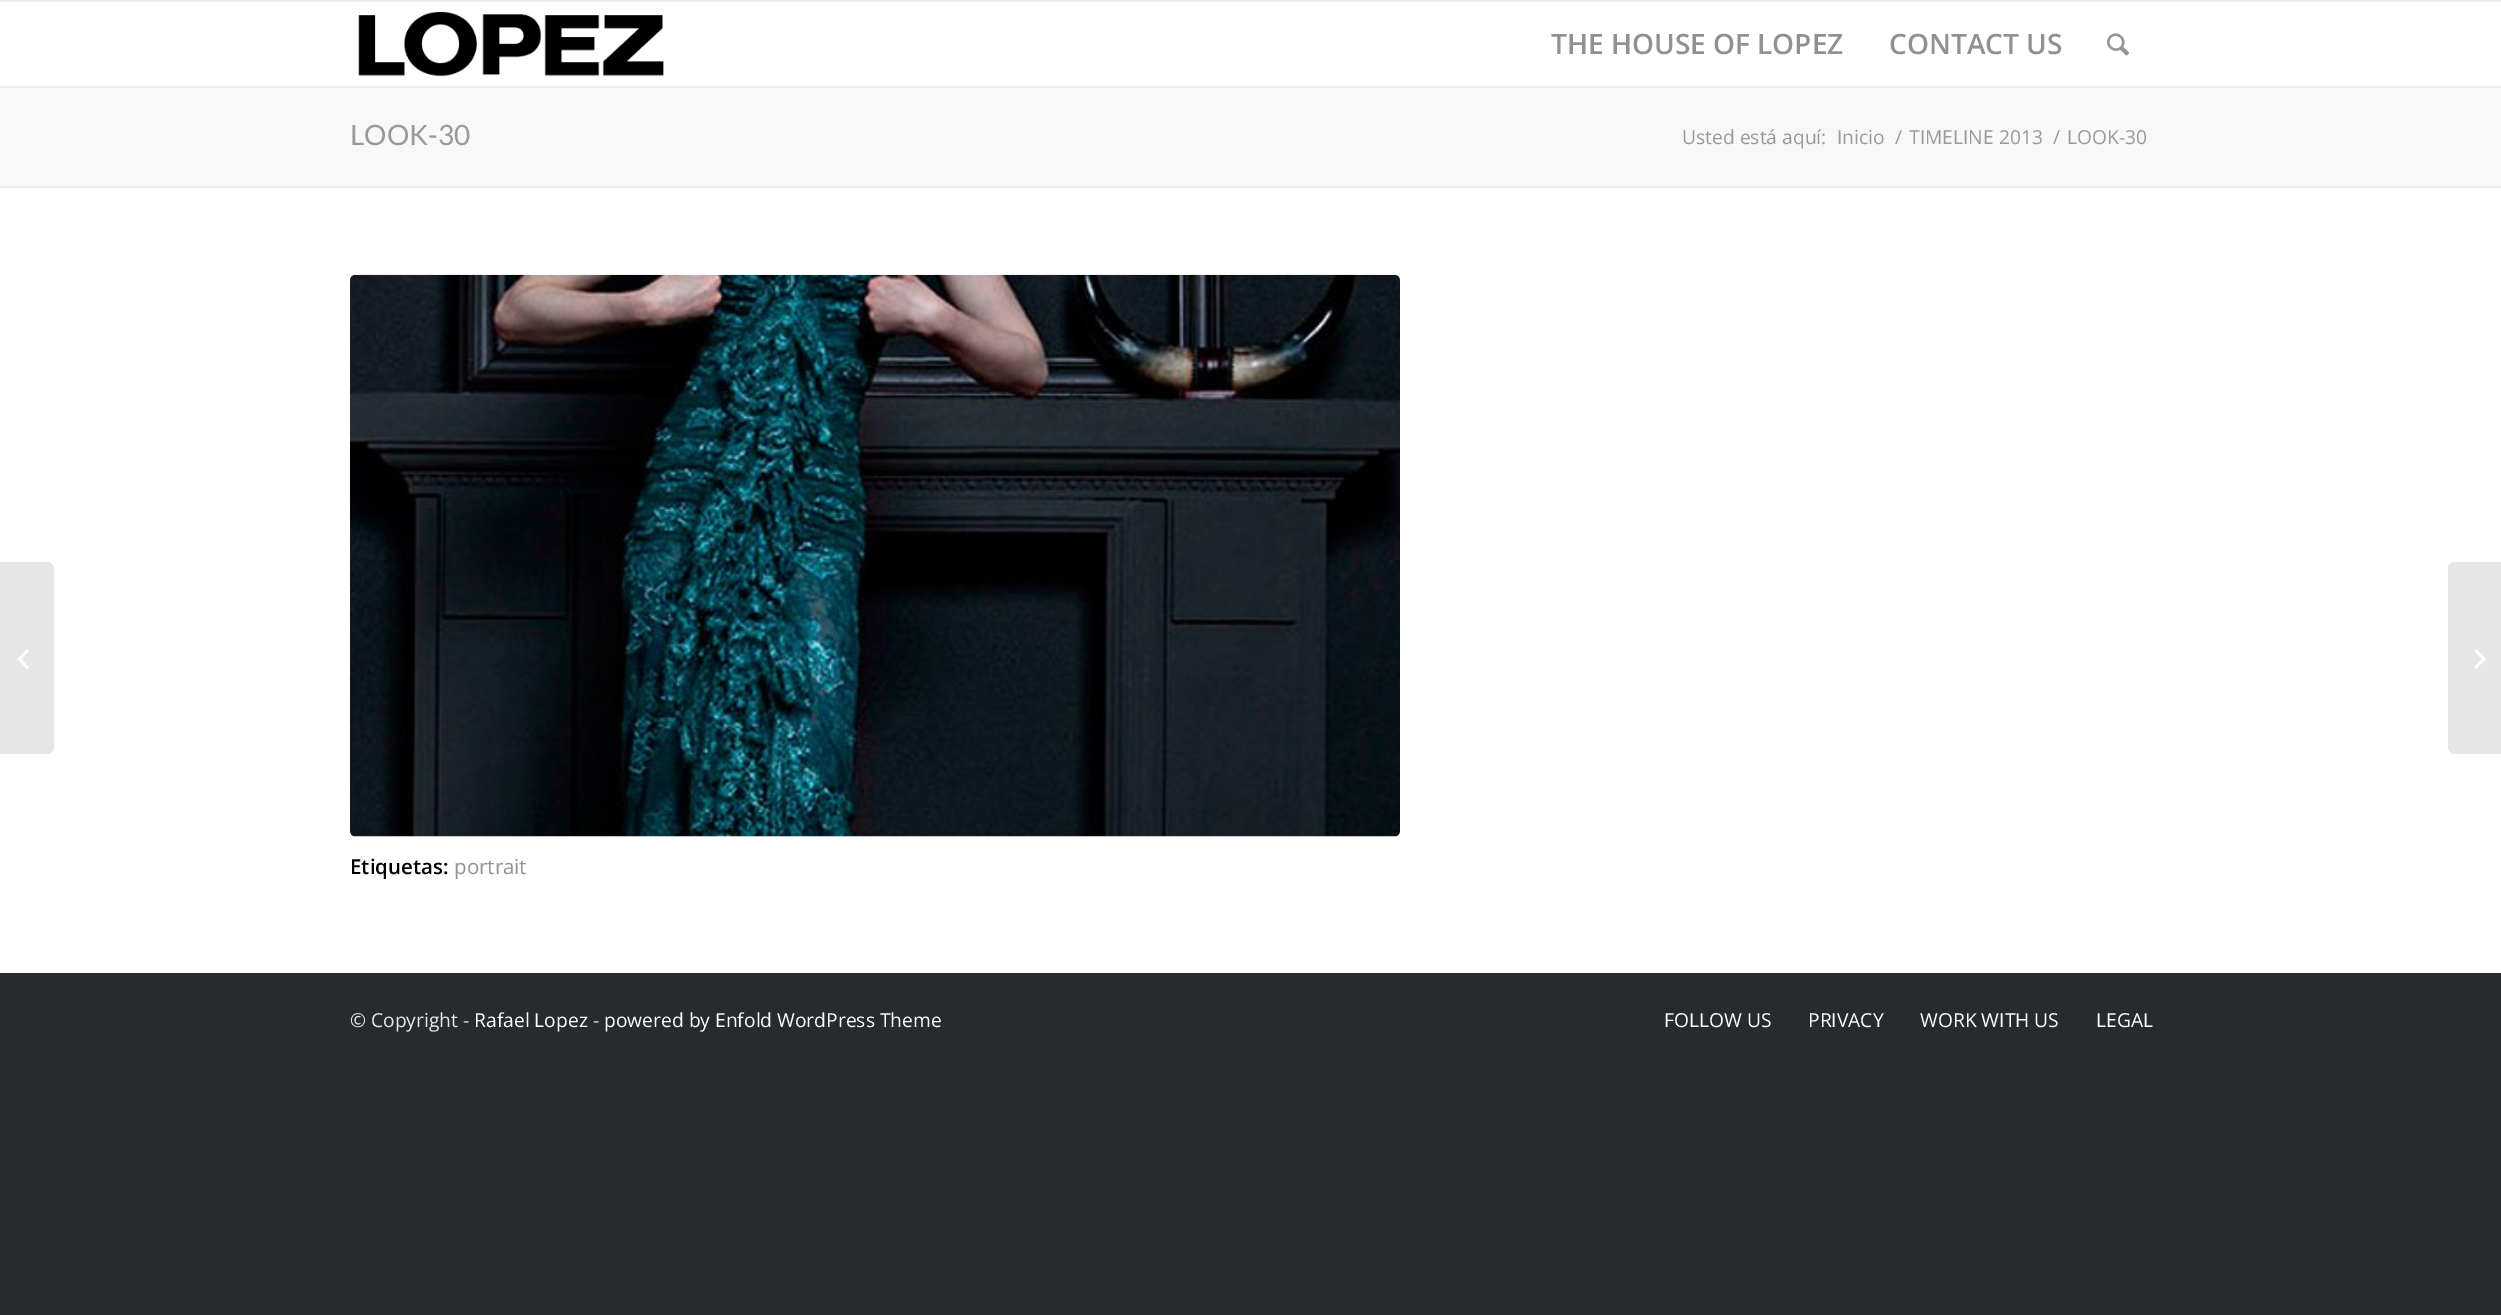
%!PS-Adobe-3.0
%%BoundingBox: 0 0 2501 1315
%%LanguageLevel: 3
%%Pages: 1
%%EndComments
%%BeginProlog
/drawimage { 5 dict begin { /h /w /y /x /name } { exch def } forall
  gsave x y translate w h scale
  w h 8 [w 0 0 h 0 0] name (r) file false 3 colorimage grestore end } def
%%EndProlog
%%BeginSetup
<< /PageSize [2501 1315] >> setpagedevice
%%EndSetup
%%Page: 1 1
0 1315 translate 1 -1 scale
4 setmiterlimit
0.157 0.169 0.18 setrgbcolor
0 0 2501 1315 rectfill
0.922 setgray
0 0 2501 2 rectfill
0 86 2501 2 rectfill
1 setgray
0 2 2501 82 rectfill
(images/1.raw) 358 11 306 66 drawimage
(images/2.raw) 2107 33 22 23 drawimage
0 188 2501 785 rectfill
0.902 setgray
newpath 0 562 moveto 47 562 lineto 51 562 54 565 54 569 curveto 54 747 lineto 54 751 51 754 47 754 curveto 0 754 lineto closepath fill
(images/3.raw) 17 649 12 20 drawimage
0.973 setgray
0 88 2501 98 rectfill
0.996 setgray
0 84 2501 2 rectfill
0.922 setgray
0 186 2501 2 rectfill
(images/4.raw) 350 274 1050 563 drawimage
0.902 setgray
newpath 2455 562 moveto 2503 562 lineto 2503 754 lineto 2455 754 lineto 2451 754 2448 751 2448 747 curveto 2448 569 lineto 2448 565 2451 562 2455 562 curveto closepath fill
(images/5.raw) 2474 649 12 20 drawimage
/OpenSans-SemiBold [28 0 0 -28 0 0] selectfont
0.569 setgray
1551 54 moveto (THE HOUSE OF LOPEZ) show
1889 54 moveto (CONTACT US) show
/Lato-Regular [28 0 0 -28 0 0] selectfont
0.6 setgray
350 145 moveto (LOOK-30) show
/OpenSans-Regular [19.25 0 0 -19.25 0 0] selectfont
1682 144 moveto (Usted está aquí:) show
1837 144 moveto (Inicio) show
1895 144 moveto (/) show
1909 144 moveto (TIMELINE 2013) show
2053 144 moveto (/) show
2067 144 moveto (LOOK-30) show
/OpenSans-SemiBold [20.5 0 0 -20.5 0 0] selectfont
0 setgray
350 874 moveto (Etiquetas:) show
/OpenSans-Regular [20.5 0 0 -20.5 0 0] selectfont
0.569 setgray
454 874 moveto (portrait) show
/OpenSans-Regular [19.25 0 0 -19.25 0 0] selectfont
0.91 setgray
350 1027 moveto (© Copyright -) show
1 setgray
474 1027 moveto (Rafael Lopez) show
0.91 setgray
593 1027 moveto (-) show
1 setgray
604 1027 moveto (powered by Enfold WordPress Theme) show
1664 1027 moveto (FOLLOW US) show
1808 1027 moveto (PRIVACY) show
1920 1027 moveto (WORK WITH US) show
2096 1027 moveto (LEGAL) show
showpage
%%EOF
